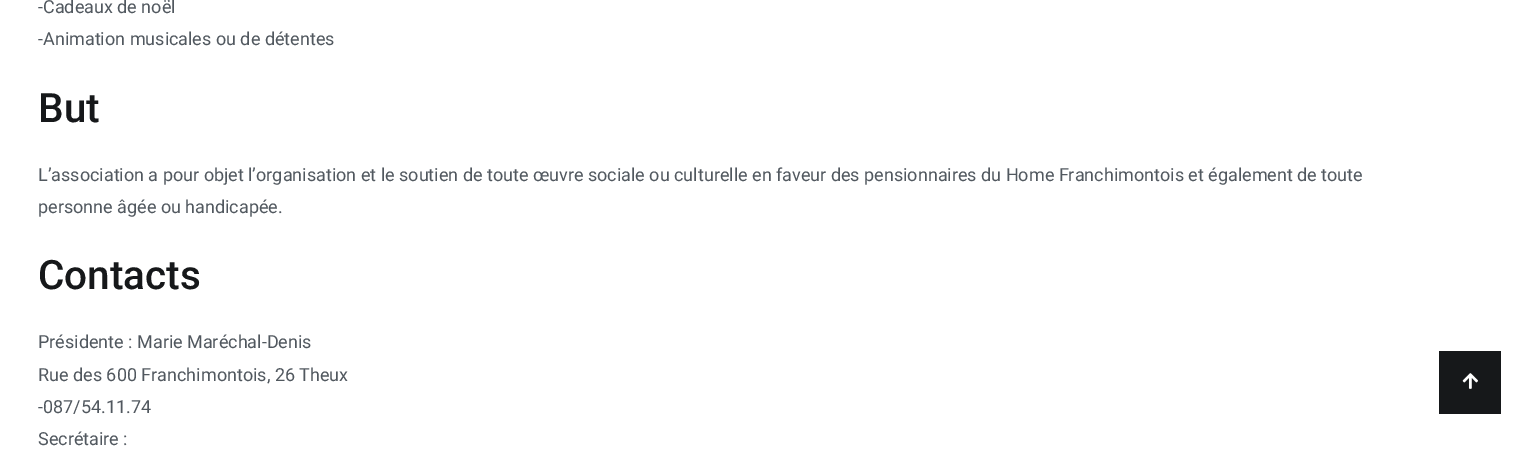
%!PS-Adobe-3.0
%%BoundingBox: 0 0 1526 451
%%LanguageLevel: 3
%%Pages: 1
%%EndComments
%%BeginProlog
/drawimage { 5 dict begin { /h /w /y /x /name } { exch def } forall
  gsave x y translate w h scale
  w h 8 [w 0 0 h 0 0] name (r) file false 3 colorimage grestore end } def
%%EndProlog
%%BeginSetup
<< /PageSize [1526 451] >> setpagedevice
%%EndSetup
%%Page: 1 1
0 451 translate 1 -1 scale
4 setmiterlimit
1 setgray
0 0 1526 451 rectfill
0.086 0.094 0.102 setrgbcolor
1439 351 62 63 rectfill
(images/1.raw) 1462 373 16 16 drawimage
/Roboto-Regular [18 0 0 -18 0 0] selectfont
0.318 0.345 0.373 setrgbcolor
38 13 moveto (-Cadeaux de noël) show
38 45 moveto (-Animation musicales ou de détentes) show
/Roboto-Medium [40.5 0 0 -40.5 0 0] selectfont
0.086 0.094 0.102 setrgbcolor
38 122 moveto (But) show
/Roboto-Regular [18 0 0 -18 0 0] selectfont
0.318 0.345 0.373 setrgbcolor
38 181 moveto (L’association a pour objet l’organisation et le soutien de toute œuvre sociale ou culturelle en faveur des pensionnaires du Home Franchimontois et également de toute) show
38 213 moveto (personne âgée ou handicapée.) show
/Roboto-Medium [40.5 0 0 -40.5 0 0] selectfont
0.086 0.094 0.102 setrgbcolor
38 289 moveto (Contacts) show
/Roboto-Regular [18 0 0 -18 0 0] selectfont
0.318 0.345 0.373 setrgbcolor
38 348 moveto (Présidente : Marie Maréchal-Denis) show
38 381 moveto (Rue des 600 Franchimontois, 26 Theux) show
38 413 moveto (-087/54.11.74) show
38 445 moveto (Secrétaire :) show
showpage
%%EOF
